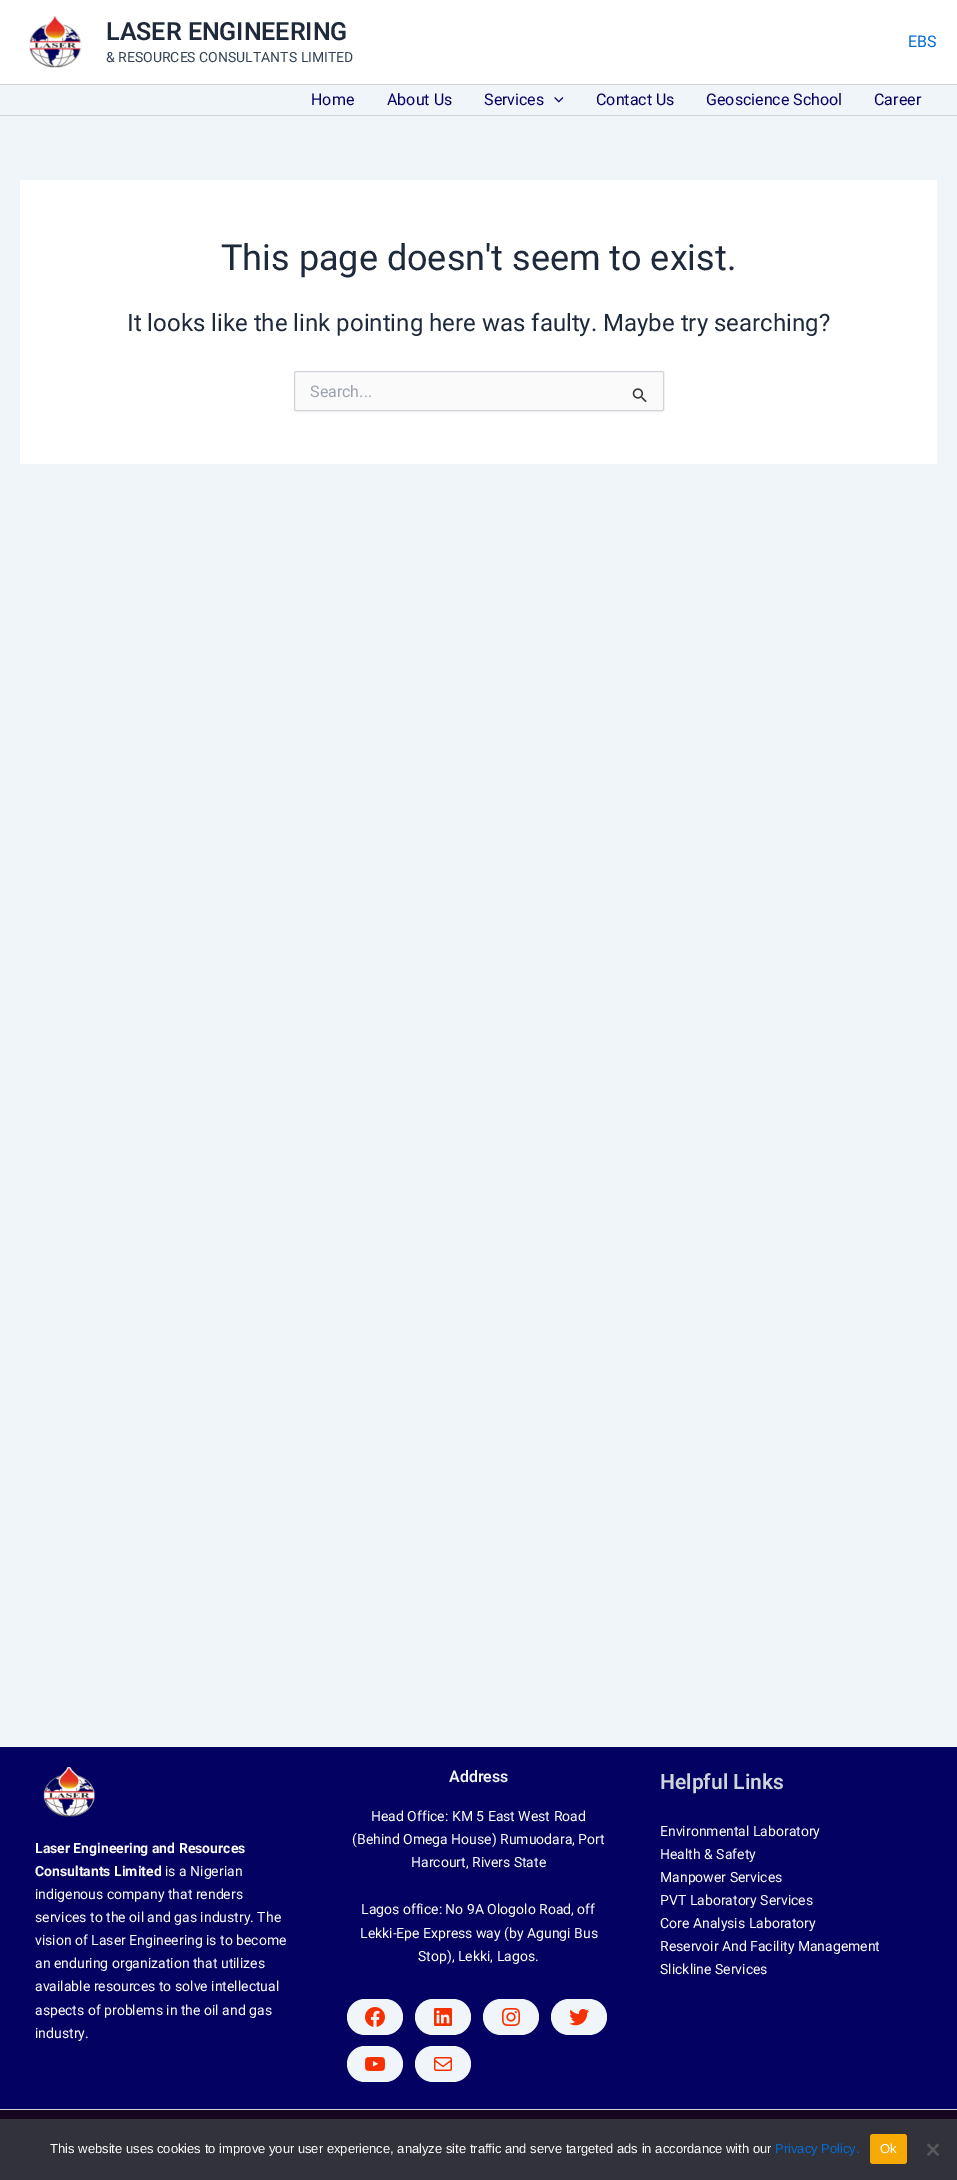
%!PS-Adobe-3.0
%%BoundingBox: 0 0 957 2180
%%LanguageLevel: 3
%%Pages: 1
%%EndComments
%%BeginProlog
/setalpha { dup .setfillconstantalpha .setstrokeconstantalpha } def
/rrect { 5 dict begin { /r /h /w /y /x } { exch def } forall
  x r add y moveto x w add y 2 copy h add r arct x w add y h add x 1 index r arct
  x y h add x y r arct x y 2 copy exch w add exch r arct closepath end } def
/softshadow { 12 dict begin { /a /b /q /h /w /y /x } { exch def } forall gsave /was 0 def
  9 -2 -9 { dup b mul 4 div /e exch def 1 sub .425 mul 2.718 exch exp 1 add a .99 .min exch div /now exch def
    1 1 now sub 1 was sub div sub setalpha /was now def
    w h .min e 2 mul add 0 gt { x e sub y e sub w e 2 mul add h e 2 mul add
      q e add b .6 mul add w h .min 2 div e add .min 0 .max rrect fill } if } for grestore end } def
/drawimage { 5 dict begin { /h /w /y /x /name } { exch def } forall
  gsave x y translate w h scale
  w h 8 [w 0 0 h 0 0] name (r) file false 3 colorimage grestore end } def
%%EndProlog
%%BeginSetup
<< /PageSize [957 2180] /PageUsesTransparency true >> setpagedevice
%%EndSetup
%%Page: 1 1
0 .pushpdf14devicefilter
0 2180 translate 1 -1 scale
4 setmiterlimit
0.941 0.961 0.98 setrgbcolor
0 0 957 2180 rectfill
1 setgray
0 0 957 84 rectfill
0.82 0.835 0.859 setrgbcolor
0 84 957 1 rectfill
(images/1.raw) 29 16 53 52 drawimage
0 115 957 1 rectfill
(images/2.raw) 554 97 10 6 drawimage
1 setgray
20 180 917 284 rectfill
0 setgray
294 372 370 40 2 1 0.05 softshadow
0.98 setgray
294.5 371.5 369 39 1.5 rrect gsave fill grestore
0.82 0.835 0.859 setrgbcolor
stroke
(images/3.raw) 632 388 15 15 drawimage
0.012 0.004 0.38 setrgbcolor
0 1747 957 362 rectfill
(images/4.raw) 43 1767 52 50 drawimage
0.941 0.961 0.98 setrgbcolor
347 1999 56 36 18 rrect fill
(images/5.raw) 365 2007 20 20 drawimage
415 1999 56 36 18 rrect fill
(images/6.raw) 434 2008 18 18 drawimage
483 1999 56 36 18 rrect fill
(images/7.raw) 502 2008 18 18 drawimage
551 1999 56 36 18 rrect fill
(images/8.raw) 569 2009 20 17 drawimage
347 2046 56 36 18 rrect fill
(images/9.raw) 365 2057 20 14 drawimage
415 2046 56 36 18 rrect fill
(images/10.raw) 434 2057 18 14 drawimage
0.086 0.024 0.125 setrgbcolor
0 2110 957 9 rectfill
0.82 0.835 0.859 setrgbcolor
0 2109 957 1 rectfill
0.196 0.196 0.227 setrgbcolor
0 2119 957 61 rectfill
0.969 0.663 0.02 setrgbcolor
870 2134 37 30 3 rrect fill
0.349 0.349 0.365 setrgbcolor
newpath 937.5 2143.5 moveto 939 2145 lineto 928.5 2156 lineto 927 2154.5 lineto closepath fill
newpath 927 2145 moveto 928.5 2143.5 lineto 939 2154.5 lineto 937.5 2156 lineto closepath fill
/Roboto-SemiBold [25 0 0 -25 0 0] selectfont
0.118 0.161 0.231 setrgbcolor
106 40 moveto (LASER ENGINEERING) show
/Roboto-Regular [14 0 0 -14 0 0] selectfont
0.2 0.255 0.333 setrgbcolor
106 62 moveto (& RESOURCES CONSULTANTS LIMITED) show
/Roboto-Regular [16 0 0 -16 0 0] selectfont
0.016 0.42 0.824 setrgbcolor
908 47 moveto (EBS) show
0.012 0.004 0.38 setrgbcolor
311 105 moveto (Home) show
387 105 moveto (About Us) show
484 105 moveto (Services) show
596 105 moveto (Contact Us) show
706 105 moveto (Geoscience School) show
874 105 moveto (Career) show
/Roboto-Regular [36 0 0 -36 0 0] selectfont
0.118 0.161 0.231 setrgbcolor
221 270 moveto (This page doesn't seem to exist.) show
/Roboto-Regular [24 0 0 -24 0 0] selectfont
127 331 moveto (It looks like the link pointing here was faulty. Maybe try searching?) show
/Roboto-Regular [16 0 0 -16 0 0] selectfont
0.612 0.639 0.686 setrgbcolor
310 397 moveto (Search...) show
/Roboto-Bold [14 0 0 -14 0 0] selectfont
1 setgray
35 1853 moveto (Laser Engineering and Resources) show
35 1876 moveto (Consultants Limited) show
/Roboto-Regular [14 0 0 -14 0 0] selectfont
165 1876 moveto (is a Nigerian) show
35 1899 moveto (indigenous company that renders) show
35 1922 moveto (services to the oil and gas industry. The) show
35 1945 moveto (vision of Laser Engineering is to become) show
35 1968 moveto (an enduring organization that utilizes) show
35 1991 moveto (available resources to solve intellectual) show
35 2015 moveto (aspects of problems in the oil and gas) show
35 2038 moveto (industry.) show
/Roboto-SemiBold [16 0 0 -16 0 0] selectfont
0.941 0.961 0.98 setrgbcolor
449 1782 moveto (Address) show
/Roboto-Regular [14 0 0 -14 0 0] selectfont
1 setgray
371 1821 moveto (Head Office: KM 5 East West Road) show
352 1844 moveto (\(Behind Omega House\) Rumuodara, Port) show
411 1867 moveto (Harcourt, Rivers State) show
361 1914 moveto (Lagos office: No 9A Ologolo Road, off) show
360 1938 moveto (Lekki-Epe Express way \(by Agungi Bus) show
418 1961 moveto (Stop\), Lekki, Lagos.) show
/Roboto-SemiBold [21 0 0 -21 0 0] selectfont
0.82 0.835 0.859 setrgbcolor
660 1789 moveto (Helpful Links) show
/Roboto-Regular [14 0 0 -14 0 0] selectfont
1 setgray
660 1836 moveto (Environmental Laboratory) show
660 1859 moveto (Health & Safety) show
660 1882 moveto (Manpower Services) show
660 1905 moveto (PVT Laboratory Services) show
660 1928 moveto (Core Analysis Laboratory) show
660 1951 moveto (Reservoir And Facility Management) show
660 1974 moveto (Slickline Services) show
/LiberationSans-Regular [13 0 0 -13 0 0] selectfont
50 2153 moveto (This website uses cookies to improve your user experience, analyze site traffic and serve targeted ads in accordance with our) show
0.016 0.42 0.824 setrgbcolor
775 2153 moveto (Privacy Policy.) show
1 setgray
880 2153 moveto (Ok) show
.poppdf14devicefilter showpage
%%EOF
